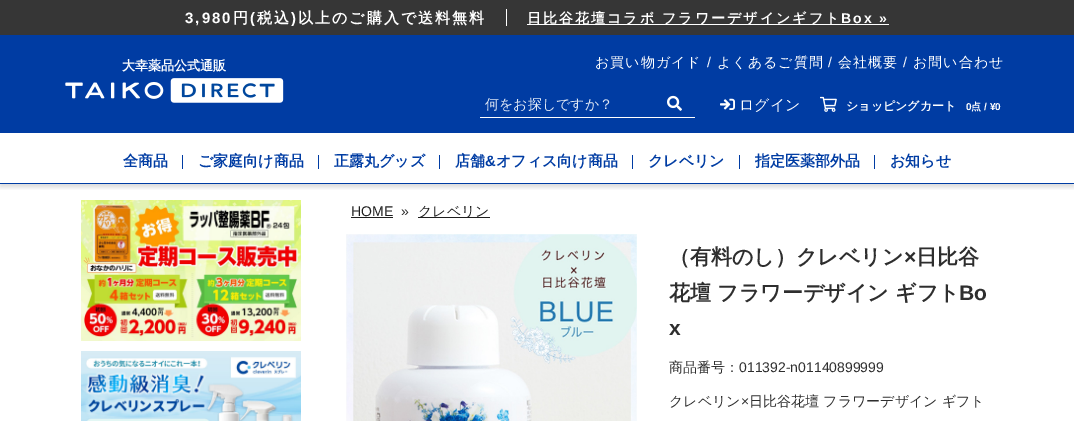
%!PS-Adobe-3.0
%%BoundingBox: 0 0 1074 421
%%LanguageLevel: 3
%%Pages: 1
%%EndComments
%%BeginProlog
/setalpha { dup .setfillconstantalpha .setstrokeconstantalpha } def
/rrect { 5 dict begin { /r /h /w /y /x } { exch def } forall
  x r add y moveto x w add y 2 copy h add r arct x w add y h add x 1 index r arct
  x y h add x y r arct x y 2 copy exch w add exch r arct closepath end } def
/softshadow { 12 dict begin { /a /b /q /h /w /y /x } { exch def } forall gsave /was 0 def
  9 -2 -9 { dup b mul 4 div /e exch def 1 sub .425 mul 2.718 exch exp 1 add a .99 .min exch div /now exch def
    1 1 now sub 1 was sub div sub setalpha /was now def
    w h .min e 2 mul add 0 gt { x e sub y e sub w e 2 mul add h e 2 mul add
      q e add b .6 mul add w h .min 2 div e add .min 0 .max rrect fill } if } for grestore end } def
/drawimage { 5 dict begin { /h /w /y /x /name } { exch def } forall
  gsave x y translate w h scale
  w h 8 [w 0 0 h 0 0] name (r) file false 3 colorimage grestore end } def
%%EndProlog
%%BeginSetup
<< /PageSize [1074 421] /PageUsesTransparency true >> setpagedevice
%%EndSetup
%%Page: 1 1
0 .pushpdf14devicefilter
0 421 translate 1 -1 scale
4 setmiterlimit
1 setgray
0 0 1074 421 rectfill
0 0.235 0.639 setrgbcolor
0 35 1074 98 rectfill
0.212 setgray
0 0 1074 35 rectfill
1 setgray
506 9 1 17 rectfill
527 24 362 1 rectfill
(images/1.raw) 65 78 219 25 drawimage
480 117 215 1 rectfill
(images/2.raw) 667 95 15 16 drawimage
(images/3.raw) 720 98 15 12 drawimage
(images/4.raw) 820 96 17 16 drawimage
gsave
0 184 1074 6 rectclip
0 setgray
0 136 1074 51 0 2.5 0.15 softshadow
grestore
0 0.235 0.639 setrgbcolor
0 183 1074 1 rectfill
182 155 1 14 rectfill
318 155 1 14 rectfill
439 155 1 14 rectfill
632 155 1 14 rectfill
739 155 1 14 rectfill
874 155 1 14 rectfill
(images/5.raw) 81 200 220 141 drawimage
(images/6.raw) 81 351 220 70 drawimage
0.118 setgray
351 217 42 1 rectfill
418 217 72 1 rectfill
(images/7.raw) 346 234 291 187 drawimage
/LiberationSans-Bold [15 0 0 -15 0 0] selectfont
1 setgray
185 23 moveto 2 0 (3,980) ashow
/WenQuanYiZenHei-Bold [15 0 0 -15 0 0] selectfont
233 23 moveto 2 0 (円) ashow
/LiberationSans-Bold [15 0 0 -15 0 0] selectfont
250 23 moveto 2 0 (\() ashow
/WenQuanYiZenHei-Bold [15 0 0 -15 0 0] selectfont
257 23 moveto 2 0 (税込) ashow
/LiberationSans-Bold [15 0 0 -15 0 0] selectfont
291 23 moveto 2 0 (\)) ashow
/WenQuanYiZenHei-Bold [15 0 0 -15 0 0] selectfont
298 23 moveto 2 0 (以上のご購入で送料無料) ashow
/WenQuanYiZenHei-Bold [14 0 0 -14 0 0] selectfont
527 23 moveto 2 0 (日比谷花壇コラボ) ashow
662 23 moveto 2 0 (フラワーデザインギフト) ashow
/LiberationSans-Bold [14 0 0 -14 0 0] selectfont
841 23 moveto 2 0 (Box ») ashow
/WenQuanYiZenHei-Bold [13 0 0 -13 0 0] selectfont
122 70 moveto (大幸薬品公式通販) show
/WenQuanYiZenHei-Medium [14 0 0 -14 0 0] selectfont
595 67 moveto 1 0 (お買い物ガイド) ashow
/LiberationSans-Regular [14 0 0 -14 0 0] selectfont
707 67 moveto 1 0 (/) ashow
/WenQuanYiZenHei-Medium [14 0 0 -14 0 0] selectfont
717 67 moveto 1 0 (よくあるご質問) ashow
/LiberationSans-Regular [14 0 0 -14 0 0] selectfont
828 67 moveto 1 0 (/) ashow
/WenQuanYiZenHei-Medium [14 0 0 -14 0 0] selectfont
838 67 moveto 1 0 (会社概要) ashow
/LiberationSans-Regular [14 0 0 -14 0 0] selectfont
903 67 moveto 1 0 (/) ashow
/WenQuanYiZenHei-Medium [14 0 0 -14 0 0] selectfont
913 67 moveto 1 0 (お問い合わせ) ashow
0.886 0.914 0.961 setrgbcolor
485 109 moveto (何をお探しですか？) show
/WenQuanYiZenHei-Medium [15 0 0 -15 0 0] selectfont
1 setgray
739 110 moveto (ログイン) show
/WenQuanYiZenHei-Bold [12 0 0 -12 0 0] selectfont
846 110 moveto (ショッピングカート) show
/LiberationSans-Bold [10 0 0 -10 0 0] selectfont
966 110 moveto (0) show
/WenQuanYiZenHei-Bold [10 0 0 -10 0 0] selectfont
971 110 moveto (点) show
/LiberationSans-Bold [10 0 0 -10 0 0] selectfont
984 110 moveto (/ ¥0) show
/WenQuanYiZenHei-Bold [15 0 0 -15 0 0] selectfont
0 0.235 0.639 setrgbcolor
123 166 moveto (全商品) show
198 166 moveto (ご家庭向け商品) show
334 166 moveto (正露丸グッズ) show
455 166 moveto (店舗) show
/LiberationSans-Bold [15 0 0 -15 0 0] selectfont
485 166 moveto (&) show
/WenQuanYiZenHei-Bold [15 0 0 -15 0 0] selectfont
496 166 moveto (オフィス向け商品) show
648 166 moveto (クレベリン) show
755 166 moveto (指定医薬部外品) show
890 166 moveto (お知らせ) show
/LiberationSans-Regular [14 0 0 -14 0 0] selectfont
0.118 setgray
351 216 moveto (HOME) show
0.18 setgray
401 216 moveto (») show
/WenQuanYiZenHei-Medium [14 0 0 -14 0 0] selectfont
0.118 setgray
418 216 moveto (クレベリン) show
/WenQuanYiZenHei-Bold [21 0 0 -21 0 0] selectfont
0.18 setgray
669 264 moveto (（有料のし）クレベリン) show
/LiberationSans-Bold [21 0 0 -21 0 0] selectfont
904 264 moveto (×) show
/WenQuanYiZenHei-Bold [21 0 0 -21 0 0] selectfont
916 264 moveto (日比谷) show
669 300 moveto (花壇 フラワーデザイン ギフト) show
/LiberationSans-Bold [21 0 0 -21 0 0] selectfont
959 300 moveto (Bo) show
669 335 moveto (x) show
/WenQuanYiZenHei-Medium [14 0 0 -14 0 0] selectfont
669 372 moveto (商品番号：) show
/LiberationSans-Regular [14 0 0 -14 0 0] selectfont
739 372 moveto (011392-n01140899999) show
/WenQuanYiZenHei-Medium [14 0 0 -14 0 0] selectfont
669 406 moveto (クレベリン) show
/LiberationSans-Regular [14 0 0 -14 0 0] selectfont
741 406 moveto (×) show
/WenQuanYiZenHei-Medium [14 0 0 -14 0 0] selectfont
749 406 moveto (日比谷花壇 フラワーデザイン ギフト) show
.poppdf14devicefilter showpage
%%EOF
